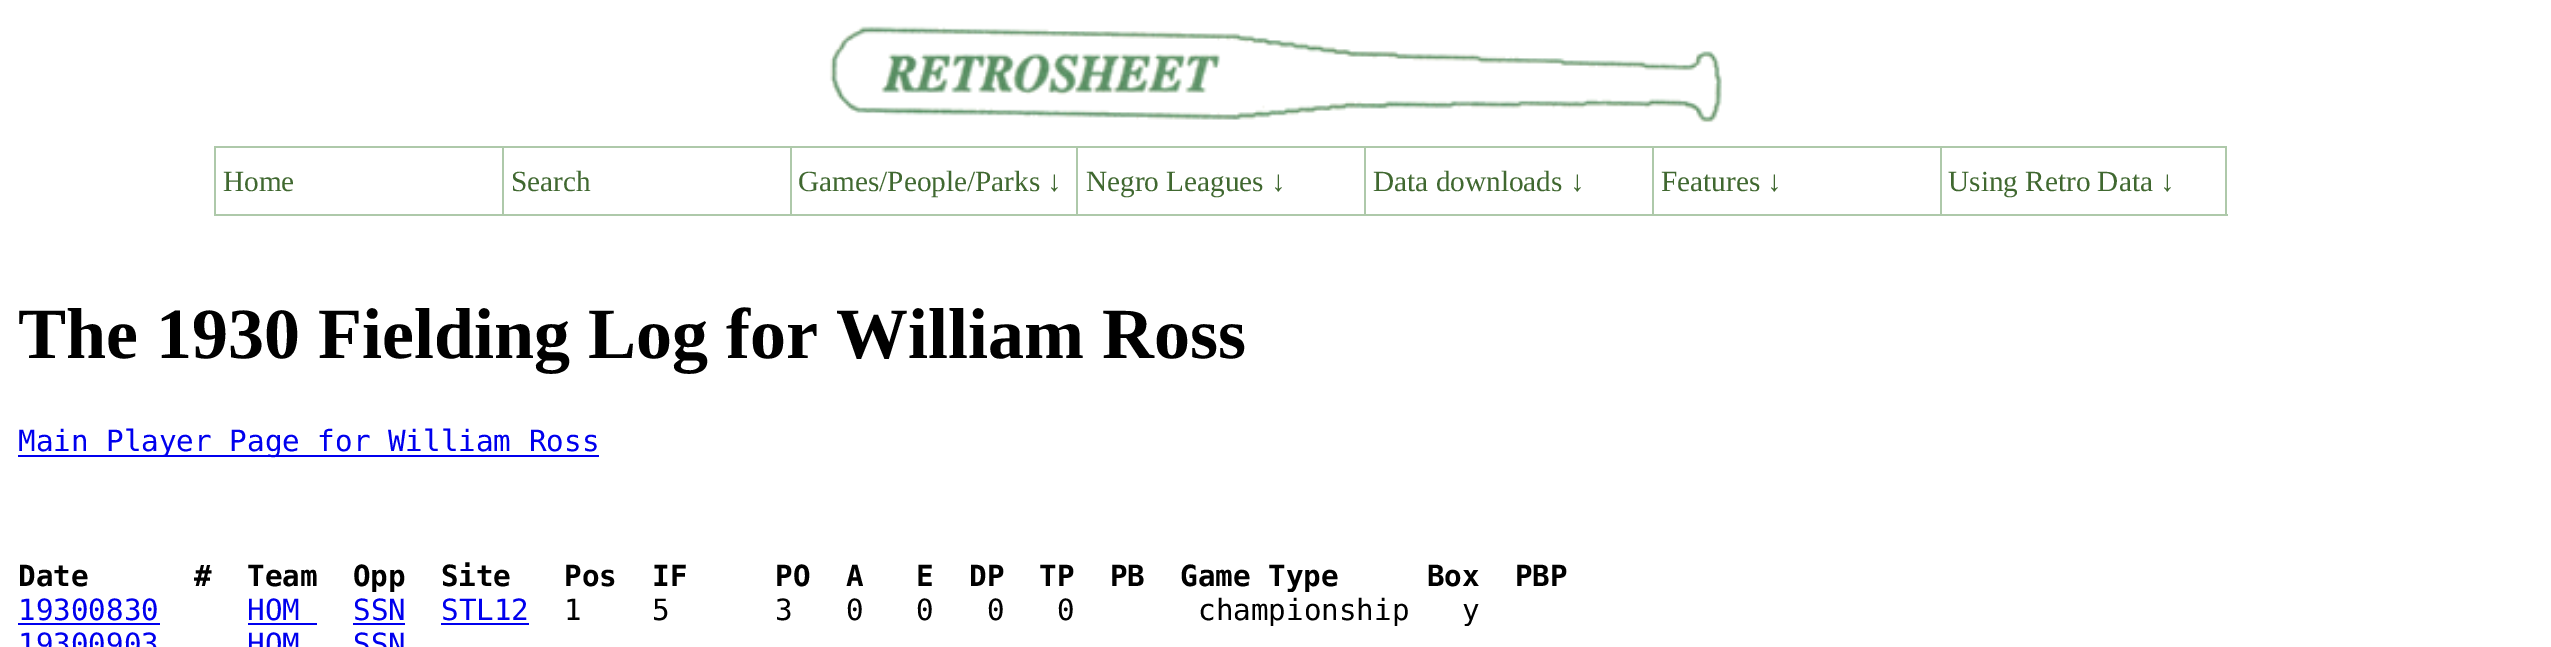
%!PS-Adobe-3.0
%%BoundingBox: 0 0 2551 647
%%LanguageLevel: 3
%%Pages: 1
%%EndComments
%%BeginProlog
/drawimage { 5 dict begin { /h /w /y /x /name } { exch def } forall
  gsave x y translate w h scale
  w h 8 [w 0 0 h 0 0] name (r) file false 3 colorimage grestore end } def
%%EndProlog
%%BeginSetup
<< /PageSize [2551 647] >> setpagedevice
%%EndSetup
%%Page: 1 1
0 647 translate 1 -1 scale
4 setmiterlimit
1 setgray
0 0 2551 647 rectfill
(images/1.raw) 829 26 893 97 drawimage
0.682 0.788 0.667 setrgbcolor
2225 146 2 70 rectfill
214 214 2014 2 rectfill
214 146 2011 2 rectfill
214 146 2 68 rectfill
502 146 2 68 rectfill
790 146 2 68 rectfill
1076 146 2 68 rectfill
1364 146 2 68 rectfill
1652 146 2 68 rectfill
1940 146 2 68 rectfill
0 0 0.933 setrgbcolor
18 455 581 2 rectfill
18 623 142 2 rectfill
248 623 69 2 rectfill
353 623 52 2 rectfill
441 623 88 2 rectfill
/LiberationSerif-Regular [29.25 0 0 -29.25 0 0] selectfont
0.251 0.408 0.188 setrgbcolor
223 191 moveto (Home) show
511 191 moveto (Search) show
798 191 moveto (Games/People/Parks ↓) show
1086 191 moveto (Negro Leagues ↓) show
1373 191 moveto (Data downloads ↓) show
1661 191 moveto (Features ↓) show
1948 191 moveto (Using Retro Data ↓) show
/LiberationSerif-Bold [72 0 0 -72 0 0] selectfont
0 setgray
18 358 moveto (The 1930 Fielding Log for William Ross) show
/DejaVuSansMono-Regular [29.25 0 0 -29.25 0 0] selectfont
0 0 0.933 setrgbcolor
18 451 moveto (Main Player Page for William Ross) show
/DejaVuSansMono-Bold [29.25 0 0 -29.25 0 0] selectfont
0 setgray
18 586 moveto (Date      #  Team  Opp  Site   Pos  IF     PO  A   E  DP  TP  PB  Game Type     Box  PBP) show
/DejaVuSansMono-Regular [29.25 0 0 -29.25 0 0] selectfont
0 0 0.933 setrgbcolor
18 620 moveto (19300830) show
247 620 moveto (HOM) show
353 620 moveto (SSN) show
441 620 moveto (STL12) show
0 setgray
564 620 moveto (1    5      3   0   0   0   0       championship   y) show
0 0 0.933 setrgbcolor
18 654 moveto (19300903) show
247 654 moveto (HOM) show
353 654 moveto (SSN) show
showpage
%%EOF
